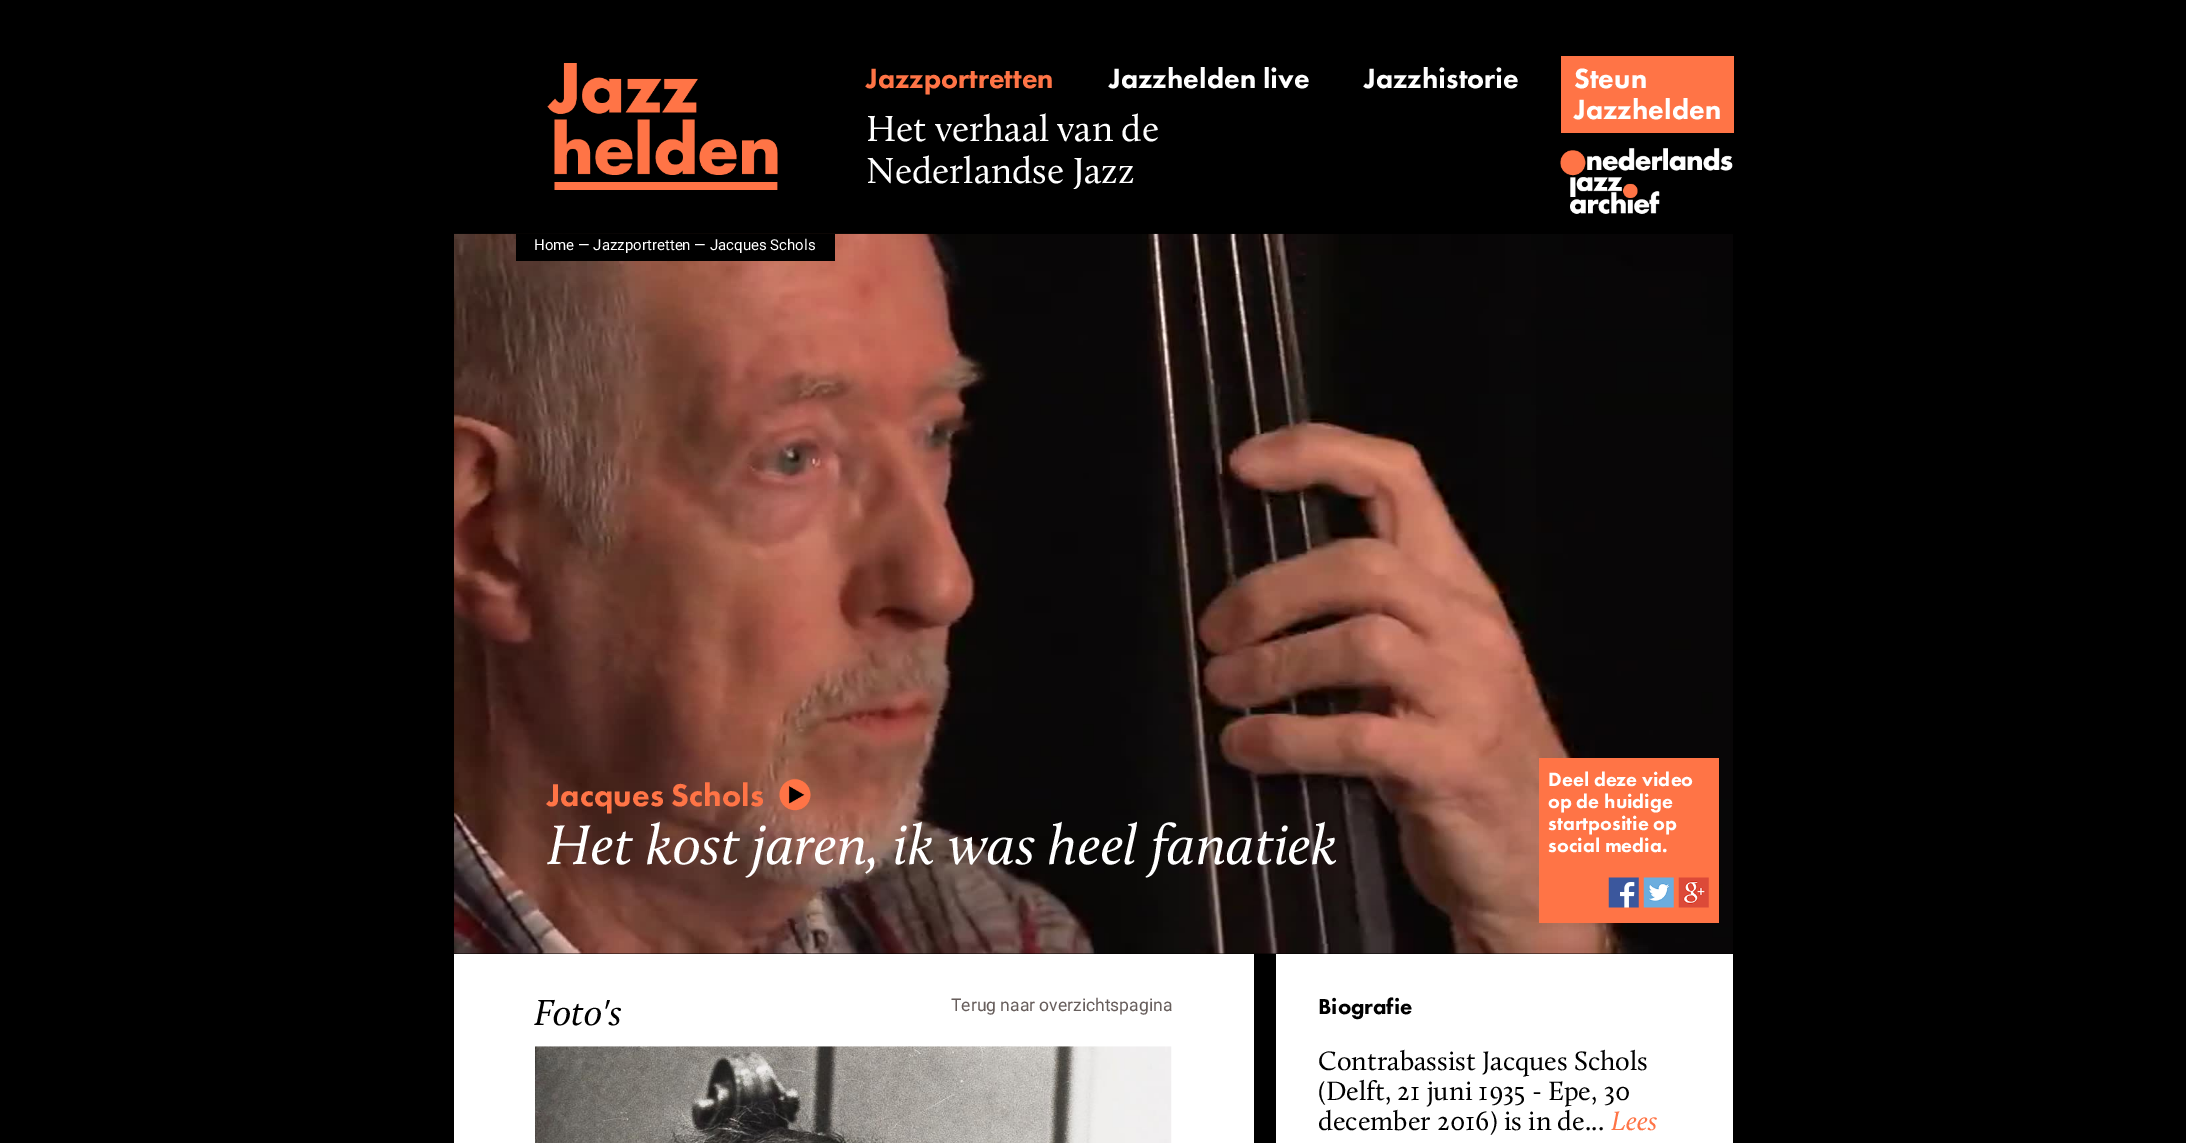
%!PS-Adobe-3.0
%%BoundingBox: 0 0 2186 1143
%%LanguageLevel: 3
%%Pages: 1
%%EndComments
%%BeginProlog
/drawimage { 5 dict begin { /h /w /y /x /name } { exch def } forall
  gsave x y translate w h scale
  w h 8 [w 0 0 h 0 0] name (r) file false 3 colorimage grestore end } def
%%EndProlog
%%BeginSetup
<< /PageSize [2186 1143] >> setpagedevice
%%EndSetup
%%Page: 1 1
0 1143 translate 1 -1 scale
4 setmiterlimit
0 setgray
0 0 2186 1143 rectfill
(images/1.raw) 547 63 231 127 drawimage
1 0.455 0.275 setrgbcolor
1561 56 173 77 rectfill
(images/2.raw) 1560 148 173 66 drawimage
(images/3.raw) 454 233 1279 721 drawimage
0 setgray
516 234 319 27 rectfill
(images/4.raw) 779 778 32 33 drawimage
1 0.455 0.275 setrgbcolor
1539 758 180 165 rectfill
(images/5.raw) 1608 877 31 31 drawimage
(images/6.raw) 1643 877 31 31 drawimage
(images/7.raw) 1678 877 31 31 drawimage
1 setgray
454 954 800 189 rectfill
(images/8.raw) 535 1046 637 97 drawimage
1276 954 457 189 rectfill
/FuturaPT-Black [28.75 0 0 -28.75 0 0] selectfont
1 0.455 0.275 setrgbcolor
866 88 moveto (Jazzportretten) show
1 setgray
1109 88 moveto (Jazzhelden live) show
1364 88 moveto (Jazzhistorie) show
1574 88 moveto (Steun) show
1574 119 moveto (Jazzhelden) show
/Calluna-Regular [37.5 0 0 -37.5 0 0] selectfont
866 141 moveto (Het verhaal van de) show
866 183 moveto (Nederlandse Jazz) show
/Roboto-Regular [15 0 0 -15 0 0] selectfont
534 250 moveto (Home — Jazzportretten — Jacques Schols) show
/FuturaPT-Black [32.5 0 0 -32.5 0 0] selectfont
1 0.455 0.275 setrgbcolor
547 806 moveto (Jacques Schols) show
/Calluna-Italic [57.5 0 0 -57.5 0 0] selectfont
1 setgray
547 864 moveto (Het kost jaren, ik was heel fanatiek) show
/FuturaPT-Black [20 0 0 -20 0 0] selectfont
1548 786 moveto (Deel deze video) show
1548 808 moveto (op de huidige) show
1548 830 moveto (startpositie op) show
1548 852 moveto (social media.) show
/Calluna-Italic [37.5 0 0 -37.5 0 0] selectfont
0 setgray
534 1025 moveto (Foto's) show
/Roboto-Regular [17.5 0 0 -17.5 0 0] selectfont
0.404 0.369 0.361 setrgbcolor
951 1011 moveto (Terug naar overzichtspagina) show
/FuturaPT-Black [22.5 0 0 -22.5 0 0] selectfont
0 setgray
1318 1014 moveto (Biografie) show
/Calluna-Regular [27.5 0 0 -27.5 0 0] selectfont
1318 1070 moveto (Contrabassist Jacques Schols) show
1318 1100 moveto (\(Delft, 21 juni 1935 - Epe, 30) show
1318 1130 moveto (december 2016\) is in de...) show
/Calluna-Italic [27.5 0 0 -27.5 0 0] selectfont
1 0.455 0.275 setrgbcolor
1611 1130 moveto (Lees) show
showpage
%%EOF
